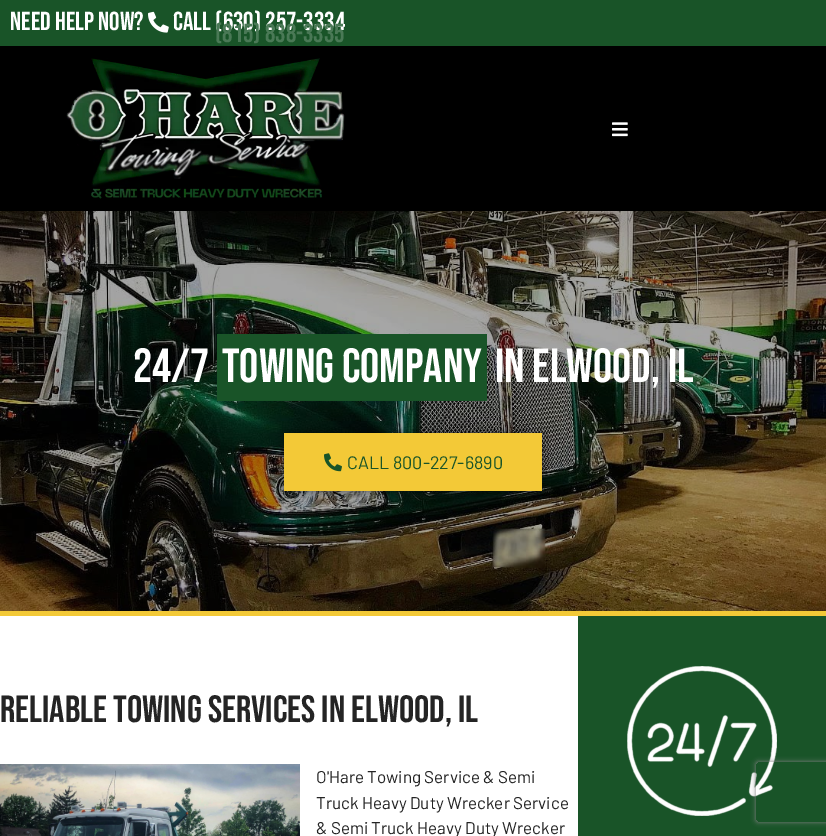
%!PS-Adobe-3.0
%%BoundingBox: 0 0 826 836
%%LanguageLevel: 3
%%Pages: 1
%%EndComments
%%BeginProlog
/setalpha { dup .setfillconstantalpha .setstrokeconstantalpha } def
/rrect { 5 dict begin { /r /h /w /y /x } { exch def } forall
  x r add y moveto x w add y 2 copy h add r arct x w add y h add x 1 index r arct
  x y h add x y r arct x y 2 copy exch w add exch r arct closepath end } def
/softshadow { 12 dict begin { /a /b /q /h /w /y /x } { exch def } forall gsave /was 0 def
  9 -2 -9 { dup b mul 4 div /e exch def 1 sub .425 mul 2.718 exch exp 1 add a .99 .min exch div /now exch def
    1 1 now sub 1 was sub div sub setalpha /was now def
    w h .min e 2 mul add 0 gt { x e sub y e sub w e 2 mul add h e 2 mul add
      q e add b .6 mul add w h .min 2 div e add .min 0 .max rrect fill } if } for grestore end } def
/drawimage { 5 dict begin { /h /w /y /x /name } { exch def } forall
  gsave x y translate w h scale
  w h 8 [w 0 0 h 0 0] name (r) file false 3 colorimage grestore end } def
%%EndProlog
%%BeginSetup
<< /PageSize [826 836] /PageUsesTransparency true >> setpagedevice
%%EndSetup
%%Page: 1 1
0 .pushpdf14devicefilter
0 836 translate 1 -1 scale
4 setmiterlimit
1 setgray
0 0 826 836 rectfill
0.098 0.329 0.157 setrgbcolor
0 0 826 46 rectfill
(images/1.raw) 148 11 21 22 drawimage
0 setgray
0 46 826 165 rectfill
(images/2.raw) 66 58 279 141 drawimage
(images/3.raw) 612 122 16 15 drawimage
(images/4.raw) 0 211 826 400 drawimage
0.953 0.788 0.216 setrgbcolor
0 611 826 5 rectfill
0.098 0.329 0.157 setrgbcolor
217 334 270 67 rectfill
0 setgray
284 433 258 58 0 5 0.5 softshadow
0.953 0.788 0.216 setrgbcolor
284 433 258 58 rectfill
(images/5.raw) 324 453 18 19 drawimage
(images/6.raw) 0 764 300 72 drawimage
0.098 0.329 0.157 setrgbcolor
578 616 248 220 rectfill
(images/7.raw) 627 666 150 150 drawimage
gsave
newpath 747 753 moveto 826 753 lineto 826 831 lineto 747 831 lineto closepath 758 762 moveto 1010 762 lineto 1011 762 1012 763 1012 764 curveto 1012 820 lineto 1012 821 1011 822 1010 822 curveto 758 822 lineto 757 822 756 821 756 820 curveto 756 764 lineto 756 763 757 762 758 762 curveto closepath eoclip newpath
0.502 setgray
756 762 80 60 2 2.5 1 softshadow
grestore
/BebasNeue-Regular [26 0 0 -26 0 0] selectfont
1 setgray
10 30 moveto (Need Help Now?) show
173 30 moveto (Call \(630\) 257-3334) show
0.29 0.475 0.337 setrgbcolor
215 42 moveto (\(815\) 838-3335) show
/BebasNeue-Regular [48 0 0 -48 0 0] selectfont
1 setgray
133 382 moveto (24/7) show
222 382 moveto (Towing Company) show
495 382 moveto (in Elwood, IL) show
/Barlow-Regular [18 0 0 -18 0 0] selectfont
0.098 0.329 0.157 setrgbcolor
347 469 moveto (CALL 800-227-6890) show
/BebasNeue-Regular [38 0 0 -38 0 0] selectfont
0.141 setgray
0 722 moveto (Reliable Towing Services in Elwood, IL) show
/Barlow-Regular [17 0 0 -17 0 0] selectfont
316 783 moveto (O'Hare Towing Service & Semi) show
316 809 moveto (Truck Heavy Duty Wrecker Service) show
316 834 moveto (& Semi Truck Heavy Duty Wrecker) show
.poppdf14devicefilter showpage
%%EOF
